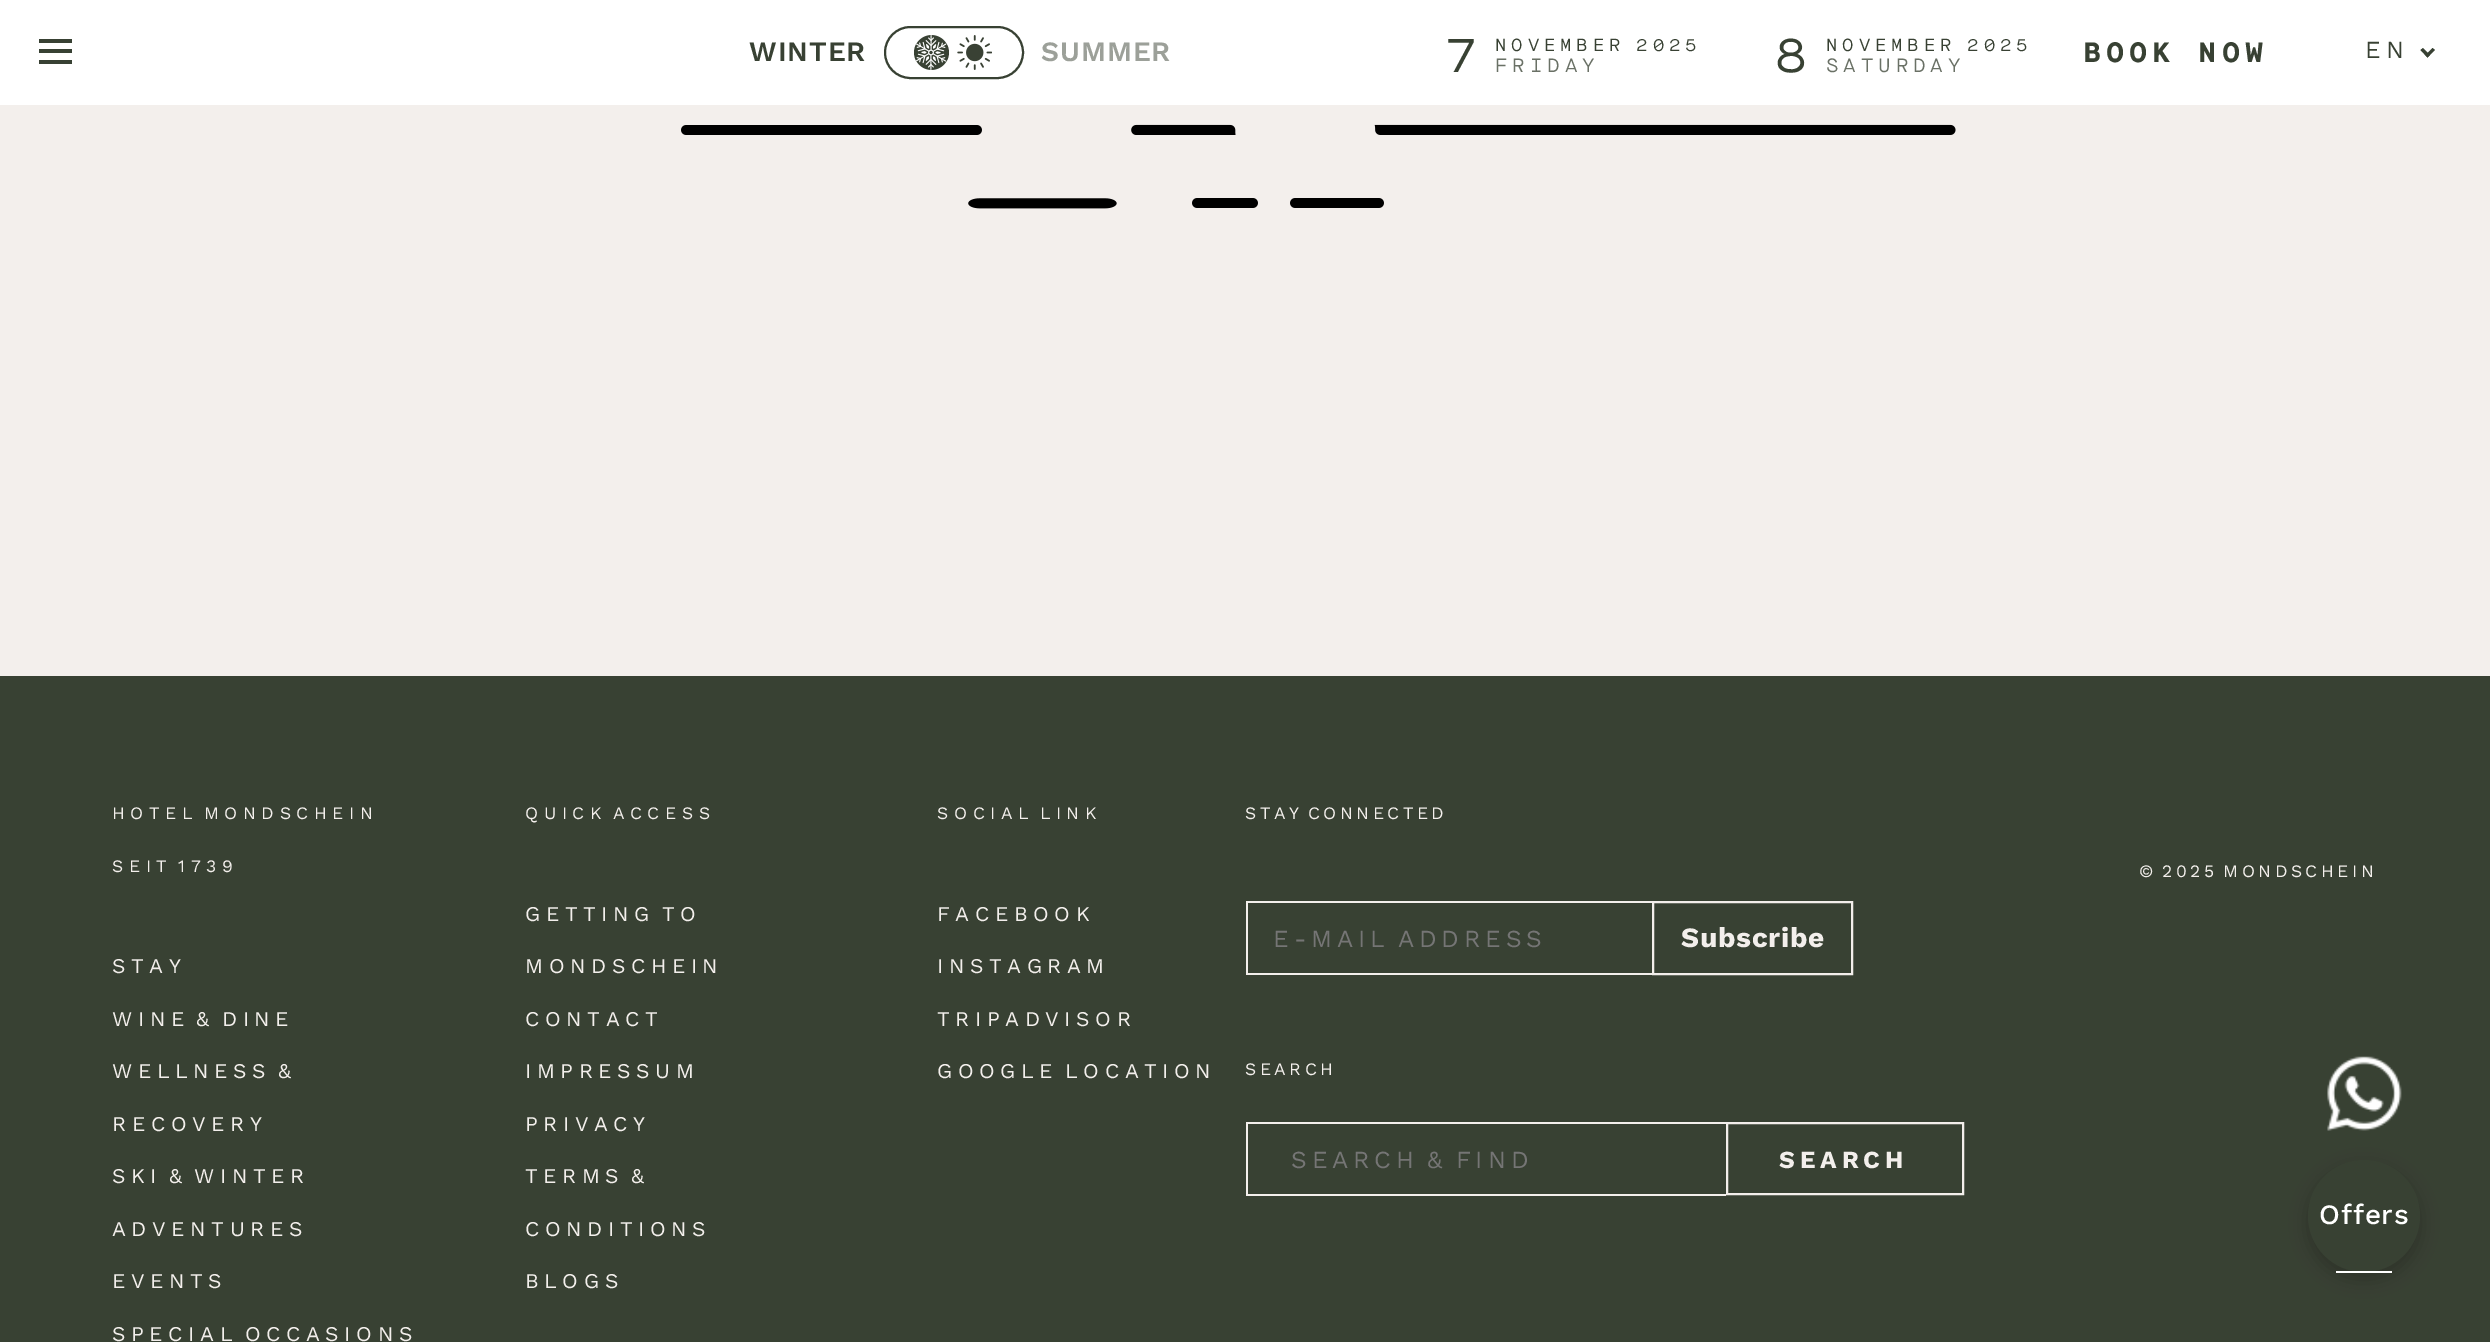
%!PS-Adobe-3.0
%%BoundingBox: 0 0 2490 1342
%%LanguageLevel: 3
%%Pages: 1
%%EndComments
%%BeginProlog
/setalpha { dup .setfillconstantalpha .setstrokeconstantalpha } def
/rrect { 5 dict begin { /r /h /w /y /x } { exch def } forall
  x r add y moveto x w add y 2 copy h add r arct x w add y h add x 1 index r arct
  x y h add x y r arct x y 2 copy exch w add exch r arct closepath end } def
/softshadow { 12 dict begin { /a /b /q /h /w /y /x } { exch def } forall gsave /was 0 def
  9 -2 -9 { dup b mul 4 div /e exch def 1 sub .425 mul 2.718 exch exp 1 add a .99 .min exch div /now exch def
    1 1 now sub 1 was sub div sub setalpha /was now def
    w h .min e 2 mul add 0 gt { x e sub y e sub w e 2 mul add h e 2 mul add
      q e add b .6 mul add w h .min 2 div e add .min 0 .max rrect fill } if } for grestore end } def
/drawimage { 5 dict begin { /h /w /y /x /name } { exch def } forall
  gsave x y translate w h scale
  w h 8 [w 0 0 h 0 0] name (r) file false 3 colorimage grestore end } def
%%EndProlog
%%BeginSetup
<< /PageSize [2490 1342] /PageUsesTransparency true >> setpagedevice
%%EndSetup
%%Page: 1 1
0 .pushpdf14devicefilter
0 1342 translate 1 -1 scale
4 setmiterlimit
0.953 0.937 0.925 setrgbcolor
0 0 2490 1342 rectfill
1 setgray
0 0 2490 105 rectfill
0.22 0.255 0.2 setrgbcolor
39 39 33 4 rectfill
39 49 33 4 rectfill
39 60 33 4 rectfill
2 setlinewidth
885 27 138 51 25.5 rrect stroke
newpath 931.5 52.5 17.5 0 360 arc closepath fill
(images/1.raw) 916 35 31 35 drawimage
(images/2.raw) 957 35 35 35 drawimage
newpath 2432.5 48 moveto 2435 50 lineto 2427.5 57.5 lineto 2425.5 55 lineto closepath fill
newpath 2423 48 moveto 2430 55 lineto 2427.5 57.5 lineto 2420.5 50 lineto closepath fill
(images/3.raw) 681 124 1275 85 drawimage
0 676 2490 666 rectfill
0.953 0.937 0.925 setrgbcolor
1246 901 406 2 rectfill
1246 973 406 2 rectfill
1246 901 2 74 rectfill
1653 902 199 72 rectstroke
1246 1122 480 2 rectfill
1246 1194 480 2 rectfill
1246 1122 2 73 rectfill
1727 1123 236 71 rectstroke
(images/4.raw) 2327 1056 75 75 drawimage
0 setgray
2308 1167 112 112 56 9 0.2 softshadow
0.22 0.255 0.2 setrgbcolor
newpath 2364 1216 56 0 360 arc closepath fill
1 setgray
2336 1271 56 2 rectfill
/WorkSans-SemiBold [28 0 0 -28 0 0] selectfont
0.22 0.255 0.2 setrgbcolor
749 61 moveto 1 0 (WINTER) ashow
0.612 0.627 0.6 setrgbcolor
1041 61 moveto 1 0 (SUMMER) ashow
/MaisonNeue-Regular [49 0 0 -49 0 0] selectfont
0.22 0.255 0.2 setrgbcolor
1445 72 moveto 4.9 0 (7) ashow
/MaisonNeue-Regular [17.5 0 0 -17.5 0 0] selectfont
1495 51 moveto -5 0 32 4.9 0 (NOVEMBER 2025) awidthshow
/MaisonNeue-Regular [19.25 0 0 -19.25 0 0] selectfont
0.416 0.443 0.4 setrgbcolor
1495 72 moveto 4.9 0 (FRIDAY) ashow
/MaisonNeue-Regular [49 0 0 -49 0 0] selectfont
0.22 0.255 0.2 setrgbcolor
1775 72 moveto 4.9 0 (8) ashow
/MaisonNeue-Regular [17.5 0 0 -17.5 0 0] selectfont
1826 51 moveto -5 0 32 4.9 0 (NOVEMBER 2025) awidthshow
/MaisonNeue-Regular [19.25 0 0 -19.25 0 0] selectfont
0.416 0.443 0.4 setrgbcolor
1826 72 moveto 4.9 0 (SATURDAY) ashow
/MaisonNeue-Bold [28 0 0 -28 0 0] selectfont
0.22 0.255 0.2 setrgbcolor
2083 62 moveto 4.9 0 (BOOK NOW) ashow
/WorkSans-Regular [24.5 0 0 -24.5 0 0] selectfont
2365 58 moveto 4.9 0 (EN) ashow
/WorkSans-Regular [17.5 0 0 -17.5 0 0] selectfont
0.953 0.937 0.925 setrgbcolor
112 819 moveto -6 0 32 5.6 0 (HOTEL MONDSCHEIN) awidthshow
112 872 moveto -6 0 32 5.6 0 (SEIT 1739) awidthshow
/WorkSans-Regular [21 0 0 -21 0 0] selectfont
112 973 moveto 5.6 0 (STAY) ashow
112 1026 moveto -6 0 32 5.6 0 (WINE & DINE) awidthshow
112 1078 moveto -6 0 32 5.6 0 (WELLNESS &) awidthshow
112 1131 moveto 5.6 0 (RECOVERY) ashow
112 1183 moveto -6 0 32 5.6 0 (SKI & WINTER) awidthshow
112 1236 moveto 5.6 0 (ADVENTURES) ashow
112 1288 moveto 5.6 0 (EVENTS) ashow
112 1341 moveto -6 0 32 5.6 0 (SPECIAL OCCASIONS) awidthshow
/WorkSans-Regular [17.5 0 0 -17.5 0 0] selectfont
525 819 moveto -6 0 32 5.6 0 (QUICK ACCESS) awidthshow
/WorkSans-Regular [21 0 0 -21 0 0] selectfont
525 921 moveto -6 0 32 5.6 0 (GETTING TO) awidthshow
525 973 moveto 5.6 0 (MONDSCHEIN) ashow
525 1026 moveto 5.6 0 (CONTACT) ashow
525 1078 moveto 5.6 0 (IMPRESSUM) ashow
525 1131 moveto 5.6 0 (PRIVACY) ashow
525 1183 moveto -6 0 32 5.6 0 (TERMS &) awidthshow
525 1236 moveto 5.6 0 (CONDITIONS) ashow
525 1288 moveto 5.6 0 (BLOGS) ashow
/WorkSans-Regular [17.5 0 0 -17.5 0 0] selectfont
937 819 moveto -6 0 32 5.6 0 (SOCIAL LINK) awidthshow
/WorkSans-Regular [21 0 0 -21 0 0] selectfont
937 921 moveto 5.6 0 (FACEBOOK) ashow
937 973 moveto 5.6 0 (INSTAGRAM) ashow
937 1026 moveto 5.6 0 (TRIPADVISOR) ashow
937 1078 moveto -6 0 32 5.6 0 (GOOGLE LOCATION) awidthshow
/WorkSans-Regular [17.5 0 0 -17.5 0 0] selectfont
1245 819 moveto -4 0 32 3.5 0 (STAY CONNECTED) awidthshow
/WorkSans-Regular [24.5 0 0 -24.5 0 0] selectfont
0.459 setgray
1273 947 moveto -5 0 32 4.9 0 (E-MAIL ADDRESS) awidthshow
/WorkSans-Bold [28 0 0 -28 0 0] selectfont
0.953 0.937 0.925 setrgbcolor
1681 947 moveto 0.75 0 (Subscribe) ashow
/WorkSans-Regular [17.5 0 0 -17.5 0 0] selectfont
2139 877 moveto -4 0 32 3.5 0 (© 2025 MONDSCHEIN) awidthshow
1245 1075 moveto 3.5 0 (SEARCH) ashow
/WorkSans-Regular [24.5 0 0 -24.5 0 0] selectfont
0.459 setgray
1291 1168 moveto -5 0 32 4.9 0 (SEARCH & FIND) awidthshow
/WorkSans-Bold [24.5 0 0 -24.5 0 0] selectfont
0.953 0.937 0.925 setrgbcolor
1779 1168 moveto 4.9 0 (SEARCH) ashow
/WorkSans-Medium [28 0 0 -28 0 0] selectfont
1 setgray
2319 1224 moveto 0.75 0 (Offers) ashow
.poppdf14devicefilter showpage
%%EOF
